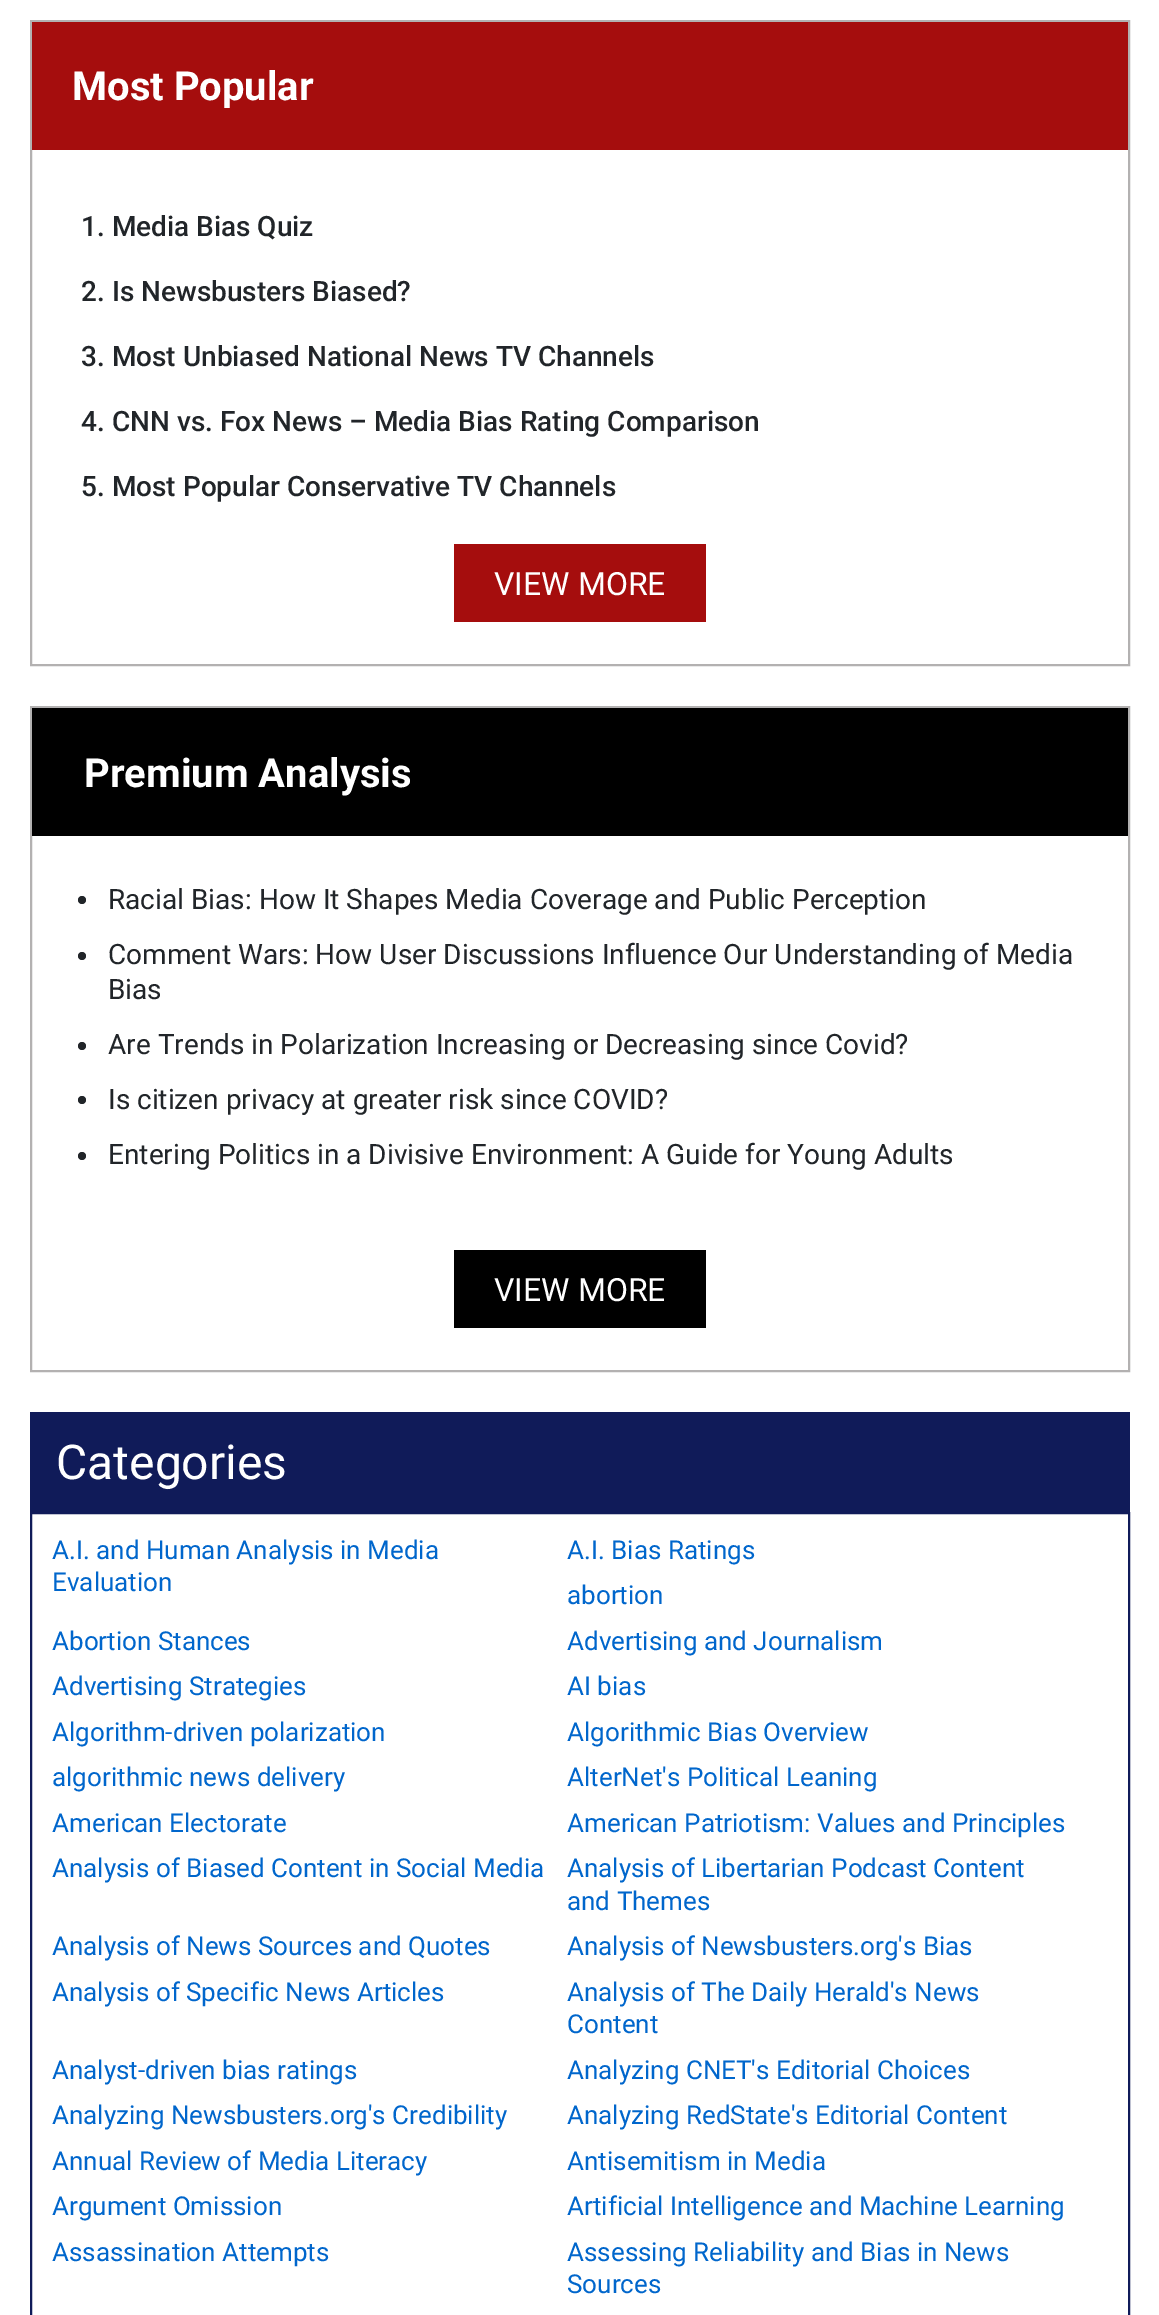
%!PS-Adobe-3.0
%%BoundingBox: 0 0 1159 2315
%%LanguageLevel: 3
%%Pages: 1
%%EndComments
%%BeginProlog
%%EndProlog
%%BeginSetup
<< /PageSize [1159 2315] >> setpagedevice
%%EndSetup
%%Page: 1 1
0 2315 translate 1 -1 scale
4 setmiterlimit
1 setgray
0 0 1159 2315 rectfill
0.702 0.694 0.694 setrgbcolor
2 setlinewidth
31 21 1098 644 rectstroke
0.647 0.051 0.051 setrgbcolor
32 22 1096 128 rectfill
454 544 252 78 rectfill
0.702 0.694 0.694 setrgbcolor
31 707 1098 664 rectstroke
0 setgray
32 708 1096 128 rectfill
0.129 0.145 0.161 setrgbcolor
newpath 82 900 4 0 360 arc closepath fill
newpath 82 956 4 0 360 arc closepath fill
newpath 82 1046 4 0 360 arc closepath fill
newpath 82 1100 4 0 360 arc closepath fill
newpath 82 1156 4 0 360 arc closepath fill
0 setgray
454 1250 252 78 rectfill
0.063 0.106 0.349 setrgbcolor
30 1412 1100 100 rectfill
31 1513 1098 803 rectstroke
/Roboto-Bold [40 0 0 -40 0 0] selectfont
1 setgray
72 100 moveto (Most Popular) show
/Roboto-Medium [28 0 0 -28 0 0] selectfont
0.129 0.145 0.161 setrgbcolor
81 236 moveto (1. Media Bias Quiz) show
81 301 moveto (2. Is Newsbusters Biased?) show
81 366 moveto (3. Most Unbiased National News TV Channels) show
81 431 moveto (4. CNN vs. Fox News – Media Bias Rating Comparison) show
81 496 moveto (5. Most Popular Conservative TV Channels) show
/Roboto-Regular [32 0 0 -32 0 0] selectfont
1 setgray
494 595 moveto (VIEW MORE) show
/Roboto-Bold [40 0 0 -40 0 0] selectfont
84 787 moveto (Premium Analysis) show
/Roboto-Regular [28 0 0 -28 0 0] selectfont
0.129 0.145 0.161 setrgbcolor
108 909 moveto (Racial Bias: How It Shapes Media Coverage and Public Perception) show
108 964 moveto (Comment Wars: How User Discussions Influence Our Understanding of Media) show
108 999 moveto (Bias) show
108 1054 moveto (Are Trends in Polarization Increasing or Decreasing since Covid?) show
108 1109 moveto (Is citizen privacy at greater risk since COVID?) show
108 1164 moveto (Entering Politics in a Divisive Environment: A Guide for Young Adults) show
/Roboto-Regular [32 0 0 -32 0 0] selectfont
1 setgray
494 1301 moveto (VIEW MORE) show
/Roboto-Regular [48 0 0 -48 0 0] selectfont
56 1479 moveto (Categories) show
/Roboto-Regular [26 0 0 -26 0 0] selectfont
0 0.4 0.8 setrgbcolor
52 1559 moveto (A.I. and Human Analysis in Media) show
52 1591 moveto (Evaluation) show
567 1559 moveto (A.I. Bias Ratings) show
567 1604 moveto (abortion) show
52 1650 moveto (Abortion Stances) show
567 1650 moveto (Advertising and Journalism) show
52 1695 moveto (Advertising Strategies) show
567 1695 moveto (AI bias) show
52 1741 moveto (Algorithm-driven polarization) show
567 1741 moveto (Algorithmic Bias Overview) show
52 1786 moveto (algorithmic news delivery) show
567 1786 moveto (AlterNet's Political Leaning) show
52 1832 moveto (American Electorate) show
567 1832 moveto (American Patriotism: Values and Principles) show
52 1877 moveto (Analysis of Biased Content in Social Media) show
567 1877 moveto (Analysis of Libertarian Podcast Content) show
567 1910 moveto (and Themes) show
52 1955 moveto (Analysis of News Sources and Quotes) show
567 1955 moveto (Analysis of Newsbusters.org's Bias) show
52 2001 moveto (Analysis of Specific News Articles) show
567 2001 moveto (Analysis of The Daily Herald's News) show
567 2033 moveto (Content) show
52 2079 moveto (Analyst-driven bias ratings) show
567 2079 moveto (Analyzing CNET's Editorial Choices) show
52 2124 moveto (Analyzing Newsbusters.org's Credibility) show
567 2124 moveto (Analyzing RedState's Editorial Content) show
52 2170 moveto (Annual Review of Media Literacy) show
567 2170 moveto (Antisemitism in Media) show
52 2215 moveto (Argument Omission) show
567 2215 moveto (Artificial Intelligence and Machine Learning) show
52 2261 moveto (Assassination Attempts) show
567 2261 moveto (Assessing Reliability and Bias in News) show
567 2293 moveto (Sources) show
showpage
%%EOF
